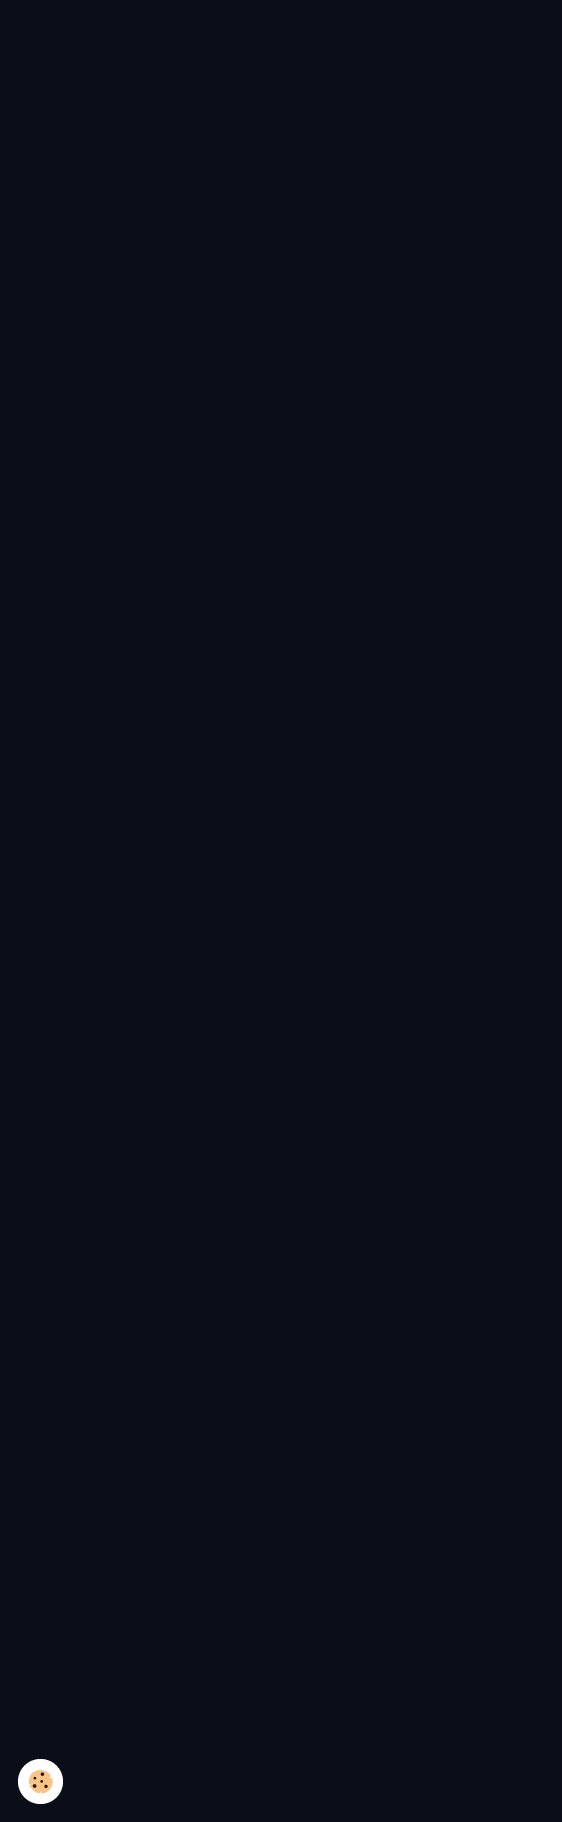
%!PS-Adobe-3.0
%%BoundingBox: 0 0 562 1822
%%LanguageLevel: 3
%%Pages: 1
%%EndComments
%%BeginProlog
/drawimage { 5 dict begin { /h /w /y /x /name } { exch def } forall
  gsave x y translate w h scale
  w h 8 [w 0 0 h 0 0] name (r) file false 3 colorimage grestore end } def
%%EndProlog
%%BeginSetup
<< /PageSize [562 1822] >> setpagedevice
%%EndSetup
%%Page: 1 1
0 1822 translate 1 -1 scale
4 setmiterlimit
0.039 0.055 0.098 setrgbcolor
0 0 562 1822 rectfill
1 setgray
newpath 40.5 1781.5 22.5 0 360 arc closepath fill
(images/1.raw) 28 1769 25 25 drawimage
showpage
%%EOF
